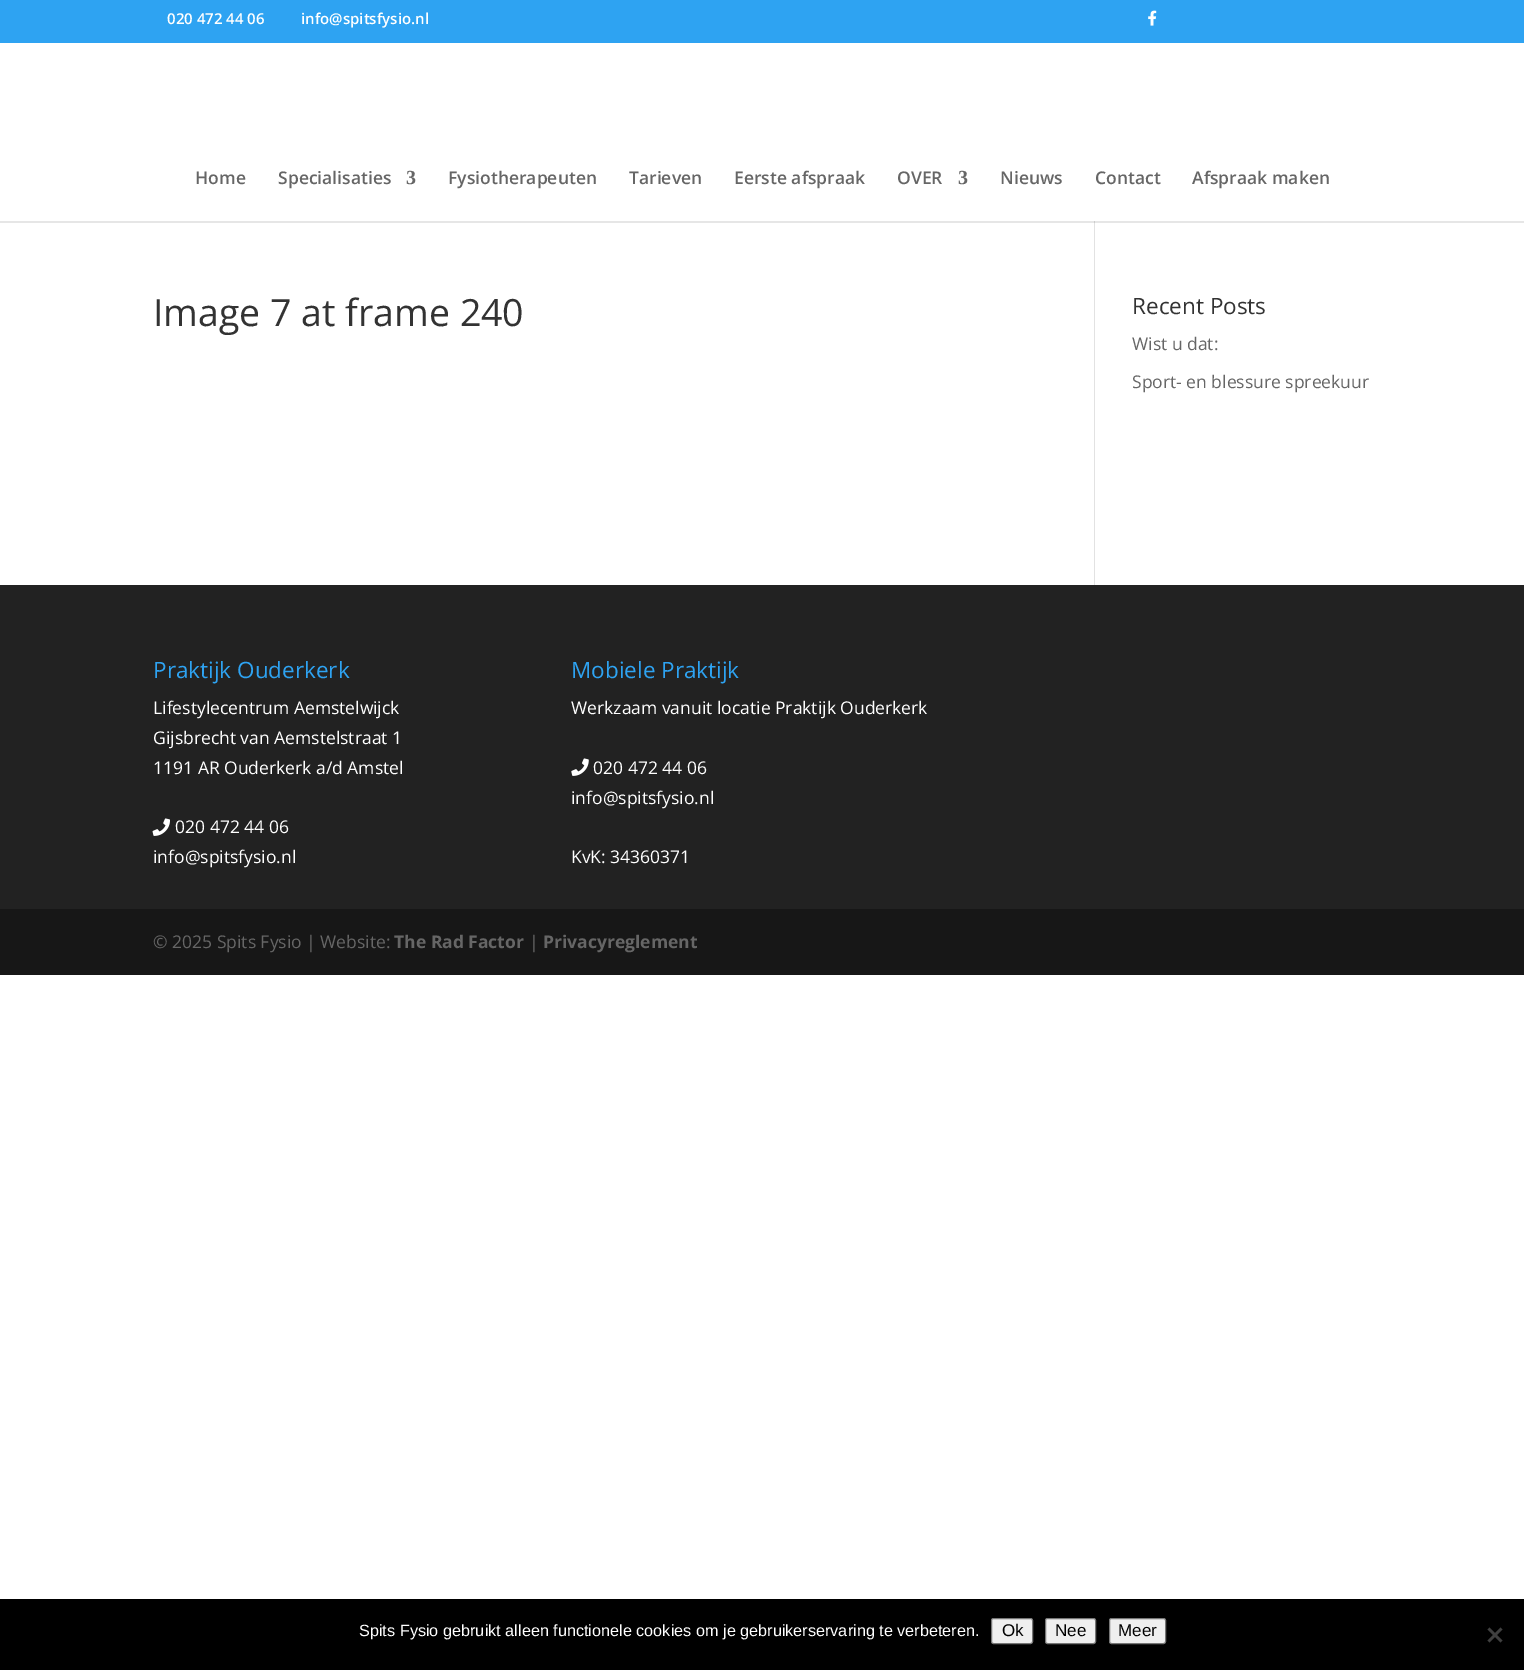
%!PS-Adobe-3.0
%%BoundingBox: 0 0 1524 1670
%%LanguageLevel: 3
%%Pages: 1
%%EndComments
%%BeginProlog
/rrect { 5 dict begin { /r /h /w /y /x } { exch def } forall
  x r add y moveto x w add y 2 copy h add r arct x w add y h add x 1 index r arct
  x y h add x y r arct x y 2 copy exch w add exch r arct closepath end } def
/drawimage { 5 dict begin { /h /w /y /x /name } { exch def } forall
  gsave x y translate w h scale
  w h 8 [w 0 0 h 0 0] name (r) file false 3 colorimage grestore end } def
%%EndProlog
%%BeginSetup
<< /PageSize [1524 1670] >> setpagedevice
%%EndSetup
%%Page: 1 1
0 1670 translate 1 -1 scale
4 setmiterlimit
1 setgray
0 0 1524 1670 rectfill
0.902 setgray
0 221 1524 2 rectfill
0.18 0.639 0.949 setrgbcolor
0 0 1524 43 rectfill
(images/1.raw) 1148 10 9 16 drawimage
0.886 setgray
1094 221 1 364 rectfill
0.796 setgray
1094 221 1 2 rectfill
0.133 setgray
0 585 1524 324 rectfill
(images/2.raw) 152 818 18 18 drawimage
(images/3.raw) 571 758 18 18 drawimage
0.09 setgray
0 909 1524 66 rectfill
0 setgray
0 1599 1524 71 rectfill
0.937 setgray
991.5 1618.5 41 25 2 rrect gsave fill grestore
0.463 setgray
stroke
0.937 setgray
1045.5 1618.5 50 25 2 rrect gsave fill grestore
0.463 setgray
stroke
0.937 setgray
1109.5 1618.5 56 25 2 rrect gsave fill grestore
0.463 setgray
stroke
0.251 setgray
newpath 1500.5 1627.5 moveto 1502.5 1629.5 lineto 1489.5 1642.5 lineto 1487.5 1640.5 lineto closepath fill
newpath 1487.5 1629.5 moveto 1489.5 1627.5 lineto 1502.5 1640.5 lineto 1500.5 1642.5 lineto closepath fill
/OpenSans-SemiBold [15 0 0 -15 0 0] selectfont
1 setgray
167 24 moveto (020 472 44 06) show
301 24 moveto (info@spitsfysio.nl) show
/OpenSans-SemiBold [17.5 0 0 -17.5 0 0] selectfont
0.4 setgray
195 184 moveto (Home) show
278 184 moveto (Specialisaties) show
/LiberationSerif-Bold [20 0 0 -20 0 0] selectfont
406 184 moveto (3) show
/OpenSans-SemiBold [17.5 0 0 -17.5 0 0] selectfont
448 184 moveto (Fysiotherapeuten) show
629 184 moveto (Tarieven) show
734 184 moveto (Eerste afspraak) show
897 184 moveto (OVER) show
/LiberationSerif-Bold [20 0 0 -20 0 0] selectfont
958 184 moveto (3) show
/OpenSans-SemiBold [17.5 0 0 -17.5 0 0] selectfont
1000 184 moveto (Nieuws) show
1095 184 moveto (Contact) show
1192 184 moveto (Afspraak maken) show
/OpenSans-Regular [37.5 0 0 -37.5 0 0] selectfont
0.2 setgray
153 326 moveto (Image 7 at frame 240) show
/OpenSans-Regular [22.5 0 0 -22.5 0 0] selectfont
1132 314 moveto (Recent Posts) show
/OpenSans-Regular [17.5 0 0 -17.5 0 0] selectfont
0.4 setgray
1132 350 moveto (Wist u dat:) show
1132 388 moveto (Sport- en blessure spreekuur) show
/OpenSans-Regular [22.5 0 0 -22.5 0 0] selectfont
0.18 0.639 0.949 setrgbcolor
153 678 moveto (Praktijk Ouderkerk) show
/OpenSans-Regular [17.5 0 0 -17.5 0 0] selectfont
1 setgray
153 714 moveto (Lifestylecentrum Aemstelwijck) show
153 744 moveto (Gijsbrecht van Aemstelstraat 1) show
153 774 moveto (1191 AR Ouderkerk a/d Amstel) show
175 833 moveto (020 472 44 06) show
153 863 moveto (info@spitsfysio.nl) show
/OpenSans-Regular [22.5 0 0 -22.5 0 0] selectfont
0.18 0.639 0.949 setrgbcolor
571 678 moveto (Mobiele Praktijk) show
/OpenSans-Regular [17.5 0 0 -17.5 0 0] selectfont
1 setgray
571 714 moveto (Werkzaam vanuit locatie Praktijk Ouderkerk) show
593 774 moveto (020 472 44 06) show
571 804 moveto (info@spitsfysio.nl) show
571 863 moveto (KvK: 34360371) show
0.4 setgray
153 948 moveto (© 2025 Spits Fysio | Website:) show
/OpenSans-Bold [17.5 0 0 -17.5 0 0] selectfont
394 948 moveto (The Rad Factor) show
/OpenSans-Regular [17.5 0 0 -17.5 0 0] selectfont
529 948 moveto (|) show
/OpenSans-Bold [17.5 0 0 -17.5 0 0] selectfont
543 948 moveto (Privacyreglement) show
/LiberationSans-Regular [16.25 0 0 -16.25 0 0] selectfont
1 setgray
359 1636 moveto (Spits Fysio gebruikt alleen functionele cookies om je gebruikerservaring te verbeteren.) show
/LiberationSans-Regular [17 0 0 -17 0 0] selectfont
0 setgray
1002 1636 moveto (Ok) show
1055 1636 moveto (Nee) show
1118 1636 moveto (Meer) show
showpage
%%EOF
